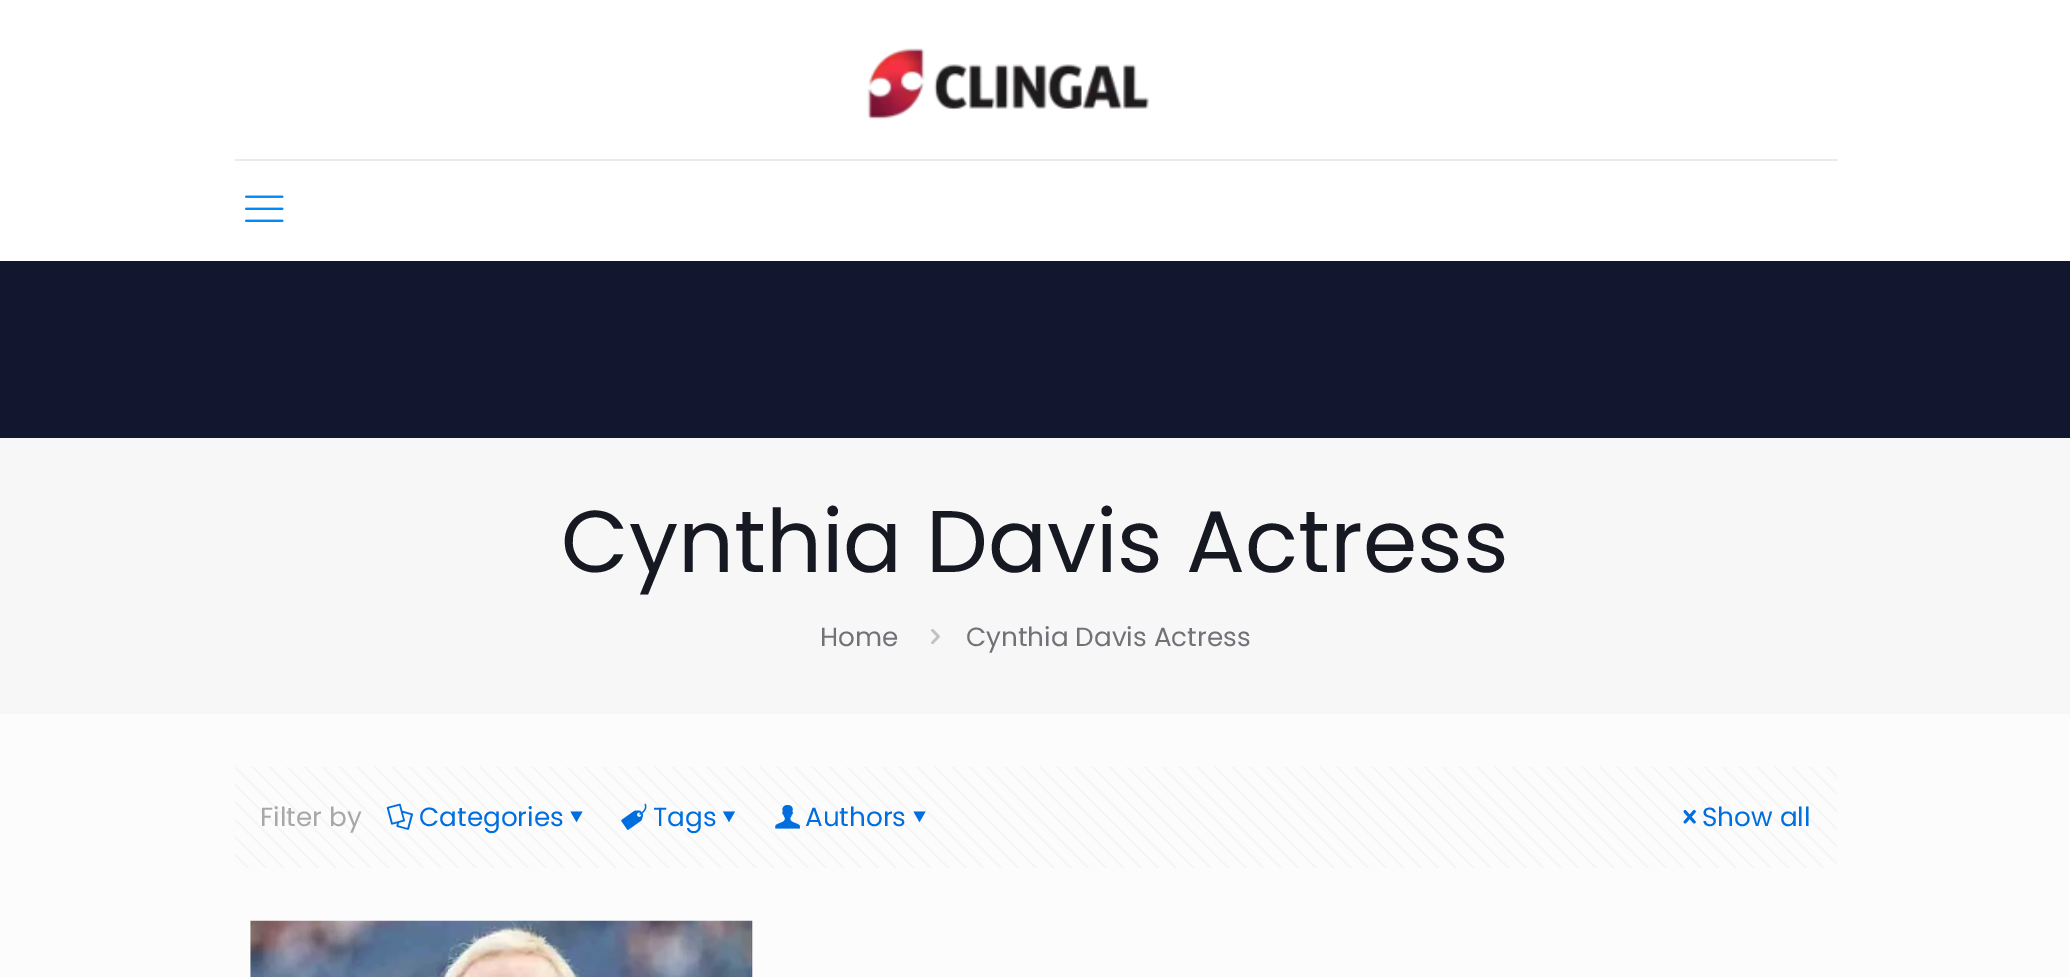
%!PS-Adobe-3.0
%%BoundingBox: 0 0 2070 977
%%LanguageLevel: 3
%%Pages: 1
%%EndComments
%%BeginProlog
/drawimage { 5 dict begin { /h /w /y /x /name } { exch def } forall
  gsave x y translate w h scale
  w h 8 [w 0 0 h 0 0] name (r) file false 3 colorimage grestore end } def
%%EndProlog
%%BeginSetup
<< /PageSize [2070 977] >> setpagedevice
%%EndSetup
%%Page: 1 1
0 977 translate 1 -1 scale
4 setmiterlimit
0.988 setgray
0 0 2070 977 rectfill
0.075 0.086 0.184 setrgbcolor
0 261 2070 177 rectfill
1 setgray
0 0 2070 261 rectfill
0.922 setgray
235 159 1603 2 rectfill
(images/1.raw) 867 48 283 72 drawimage
(images/2.raw) 245 195 39 27 drawimage
0.969 setgray
0 438 2070 276 rectfill
(images/3.raw) 931 629 9 16 drawimage
(images/4.raw) 235 767 1602 101 drawimage
(images/5.raw) 386 803 27 27 drawimage
0 0.431 0.875 setrgbcolor
newpath 582.5 811.5 moveto 576.5 822 lineto 570.5 811.5 lineto closepath fill
(images/6.raw) 621 803 26 27 drawimage
newpath 735 811.5 moveto 729 822 lineto 723 811.5 lineto closepath fill
(images/7.raw) 775 805 25 24 drawimage
newpath 925.5 811.5 moveto 919.5 822 lineto 913.5 811.5 lineto closepath fill
(images/8.raw) 1683 810 13 14 drawimage
(images/9.raw) 250 920 503 57 drawimage
/Poppins-Regular [87.5 0 0 -87.5 0 0] selectfont
0.086 0.098 0.133 setrgbcolor
561 572 moveto (Cynthia Davis Actress) show
/Poppins-Regular [26.25 0 0 -26.25 0 0] selectfont
0.439 0.447 0.467 setrgbcolor
820 646 moveto (Home) show
966 646 moveto (Cynthia Davis Actress) show
0.659 setgray
260 826 moveto (Filter by) show
0 0.431 0.875 setrgbcolor
419 826 moveto (Categories) show
653 826 moveto (Tags) show
805 826 moveto (Authors) show
1702 826 moveto (Show all) show
showpage
%%EOF
